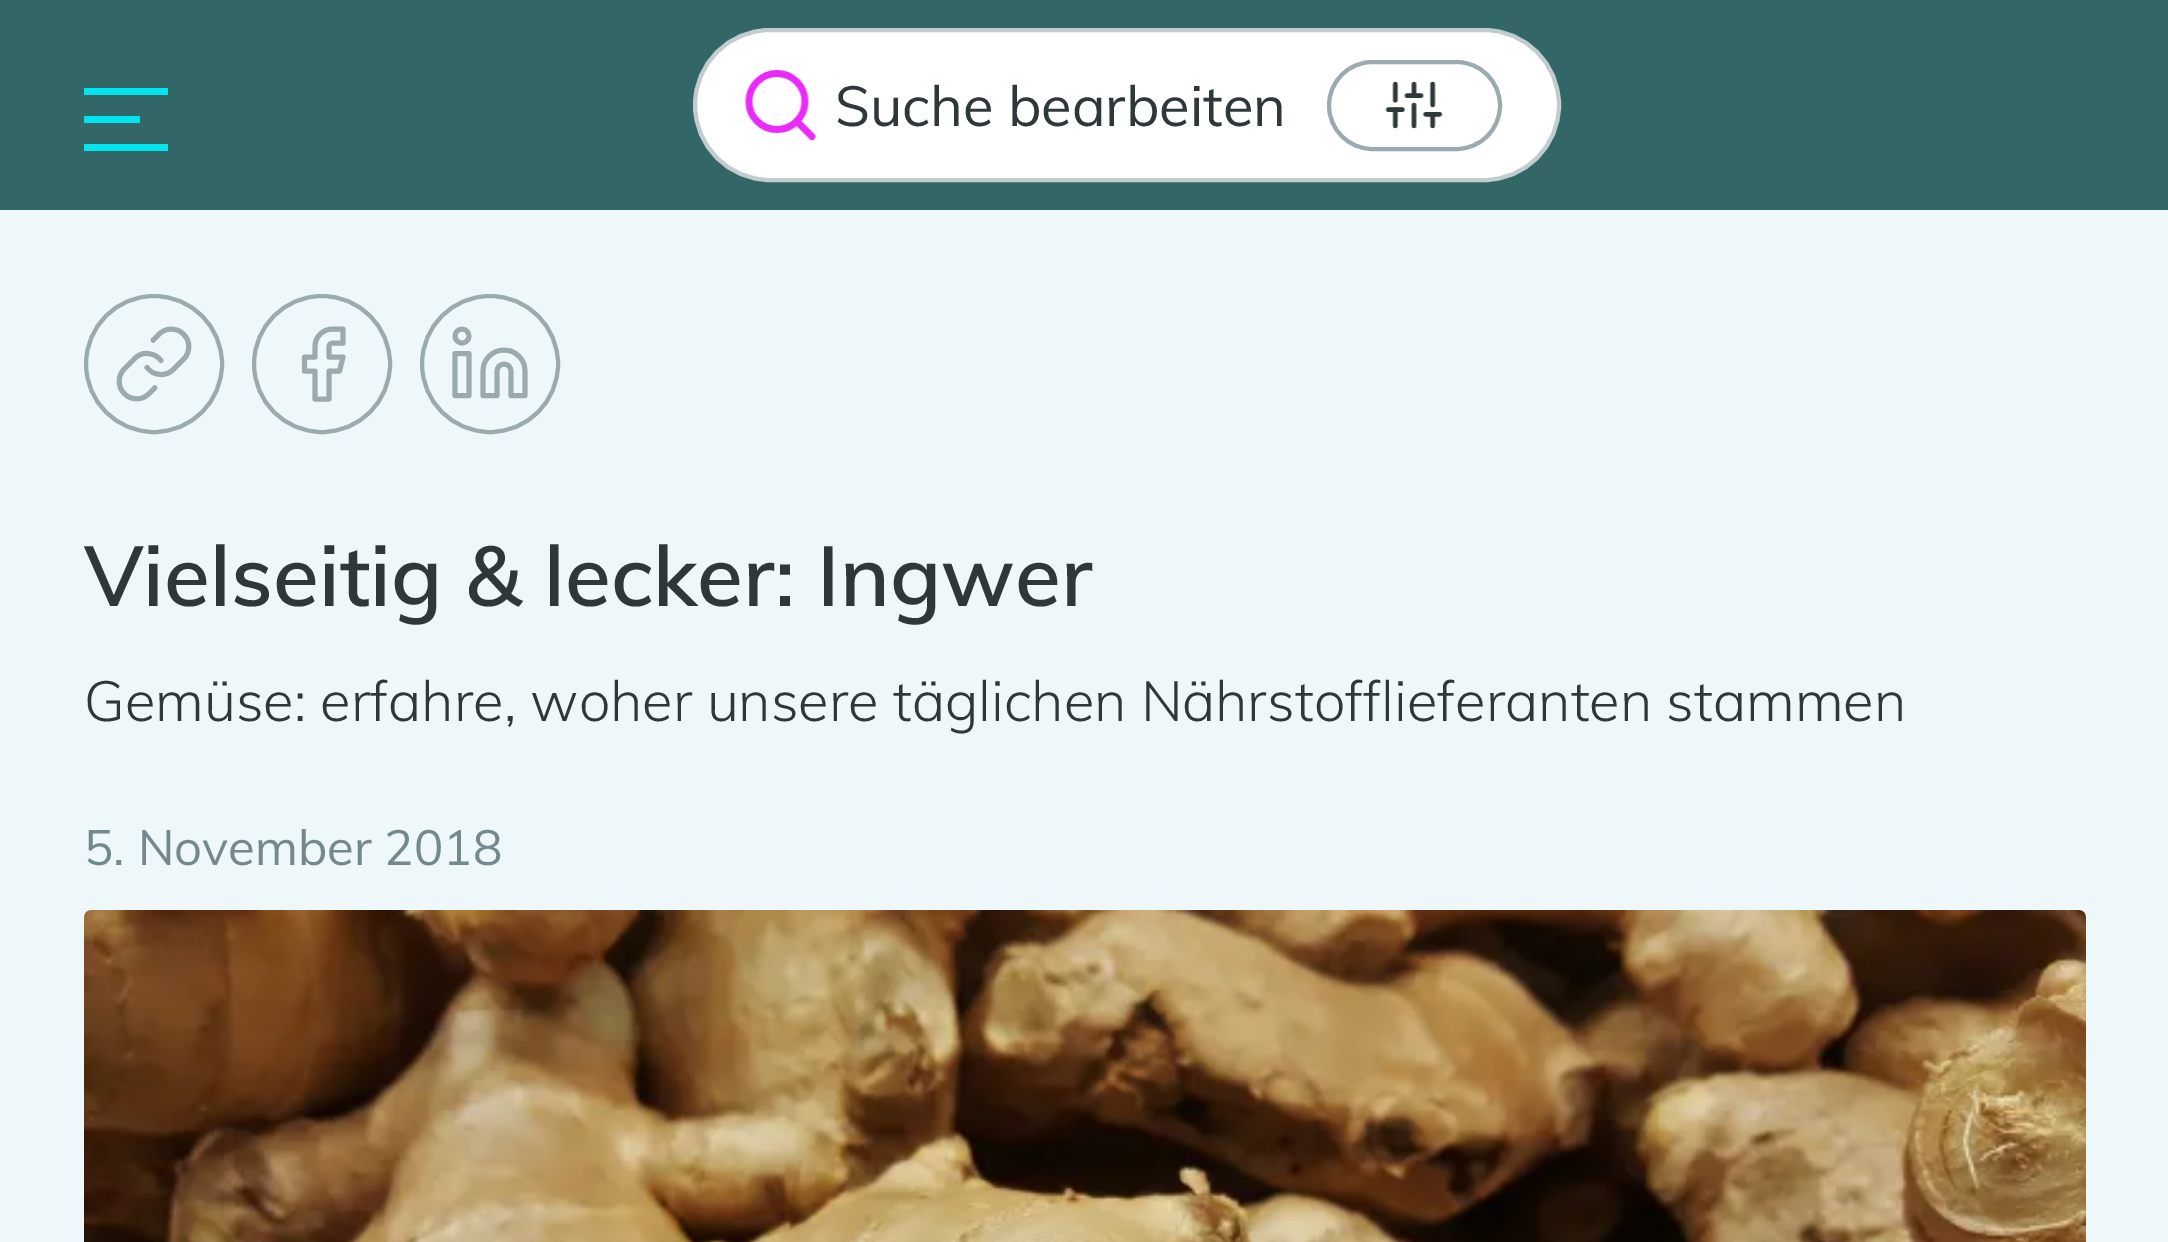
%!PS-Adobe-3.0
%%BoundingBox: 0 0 2168 1242
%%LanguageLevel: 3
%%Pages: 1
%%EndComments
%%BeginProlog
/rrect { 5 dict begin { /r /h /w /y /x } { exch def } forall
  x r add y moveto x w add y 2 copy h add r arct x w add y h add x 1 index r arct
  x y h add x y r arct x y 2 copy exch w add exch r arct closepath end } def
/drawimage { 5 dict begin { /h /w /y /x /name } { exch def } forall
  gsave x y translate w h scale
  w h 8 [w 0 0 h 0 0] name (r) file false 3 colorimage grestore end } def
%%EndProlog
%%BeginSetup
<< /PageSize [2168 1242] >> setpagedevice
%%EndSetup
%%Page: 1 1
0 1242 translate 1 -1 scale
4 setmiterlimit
0.933 0.973 0.984 setrgbcolor
0 0 2168 1242 rectfill
0.2 0.4 0.4 setrgbcolor
0 0 2168 210 rectfill
0.004 0.898 0.941 setrgbcolor
84 88 84 7 rectfill
84 116 56 7 rectfill
84 144 84 7 rectfill
1 setgray
695 30 864 150 75 rrect gsave fill grestore
0.761 0.8 0.808 setrgbcolor
4 setlinewidth
stroke
(images/1.raw) 745 70 72 71 drawimage
0.608 0.667 0.682 setrgbcolor
1329 62 171 87 43.5 rrect stroke
(images/2.raw) 1385 81 58 48 drawimage
newpath 154 364 68 0 360 arc closepath stroke
(images/3.raw) 116 326 76 76 drawimage
newpath 322 364 68 0 360 arc closepath stroke
(images/4.raw) 301 326 45 76 drawimage
newpath 490 364 68 0 360 arc closepath stroke
(images/5.raw) 452 326 76 73 drawimage
(images/6.raw) 84 910 2002 332 drawimage
/Muli-Regular [56 0 0 -56 0 0] selectfont
0.18 0.216 0.227 setrgbcolor
835 126 moveto (Suche bearbeiten) show
/Muli-SemiBold [84 0 0 -84 0 0] selectfont
84 606 moveto (Vielseitig & lecker: Ingwer) show
/Muli-Light [56 0 0 -56 0 0] selectfont
84 721 moveto (Gemüse: erfahre, woher unsere täglichen Nährstofflieferanten stammen) show
/Muli-Regular [49 0 0 -49 0 0] selectfont
0.451 0.537 0.557 setrgbcolor
84 865 moveto (5. November 2018) show
showpage
%%EOF
